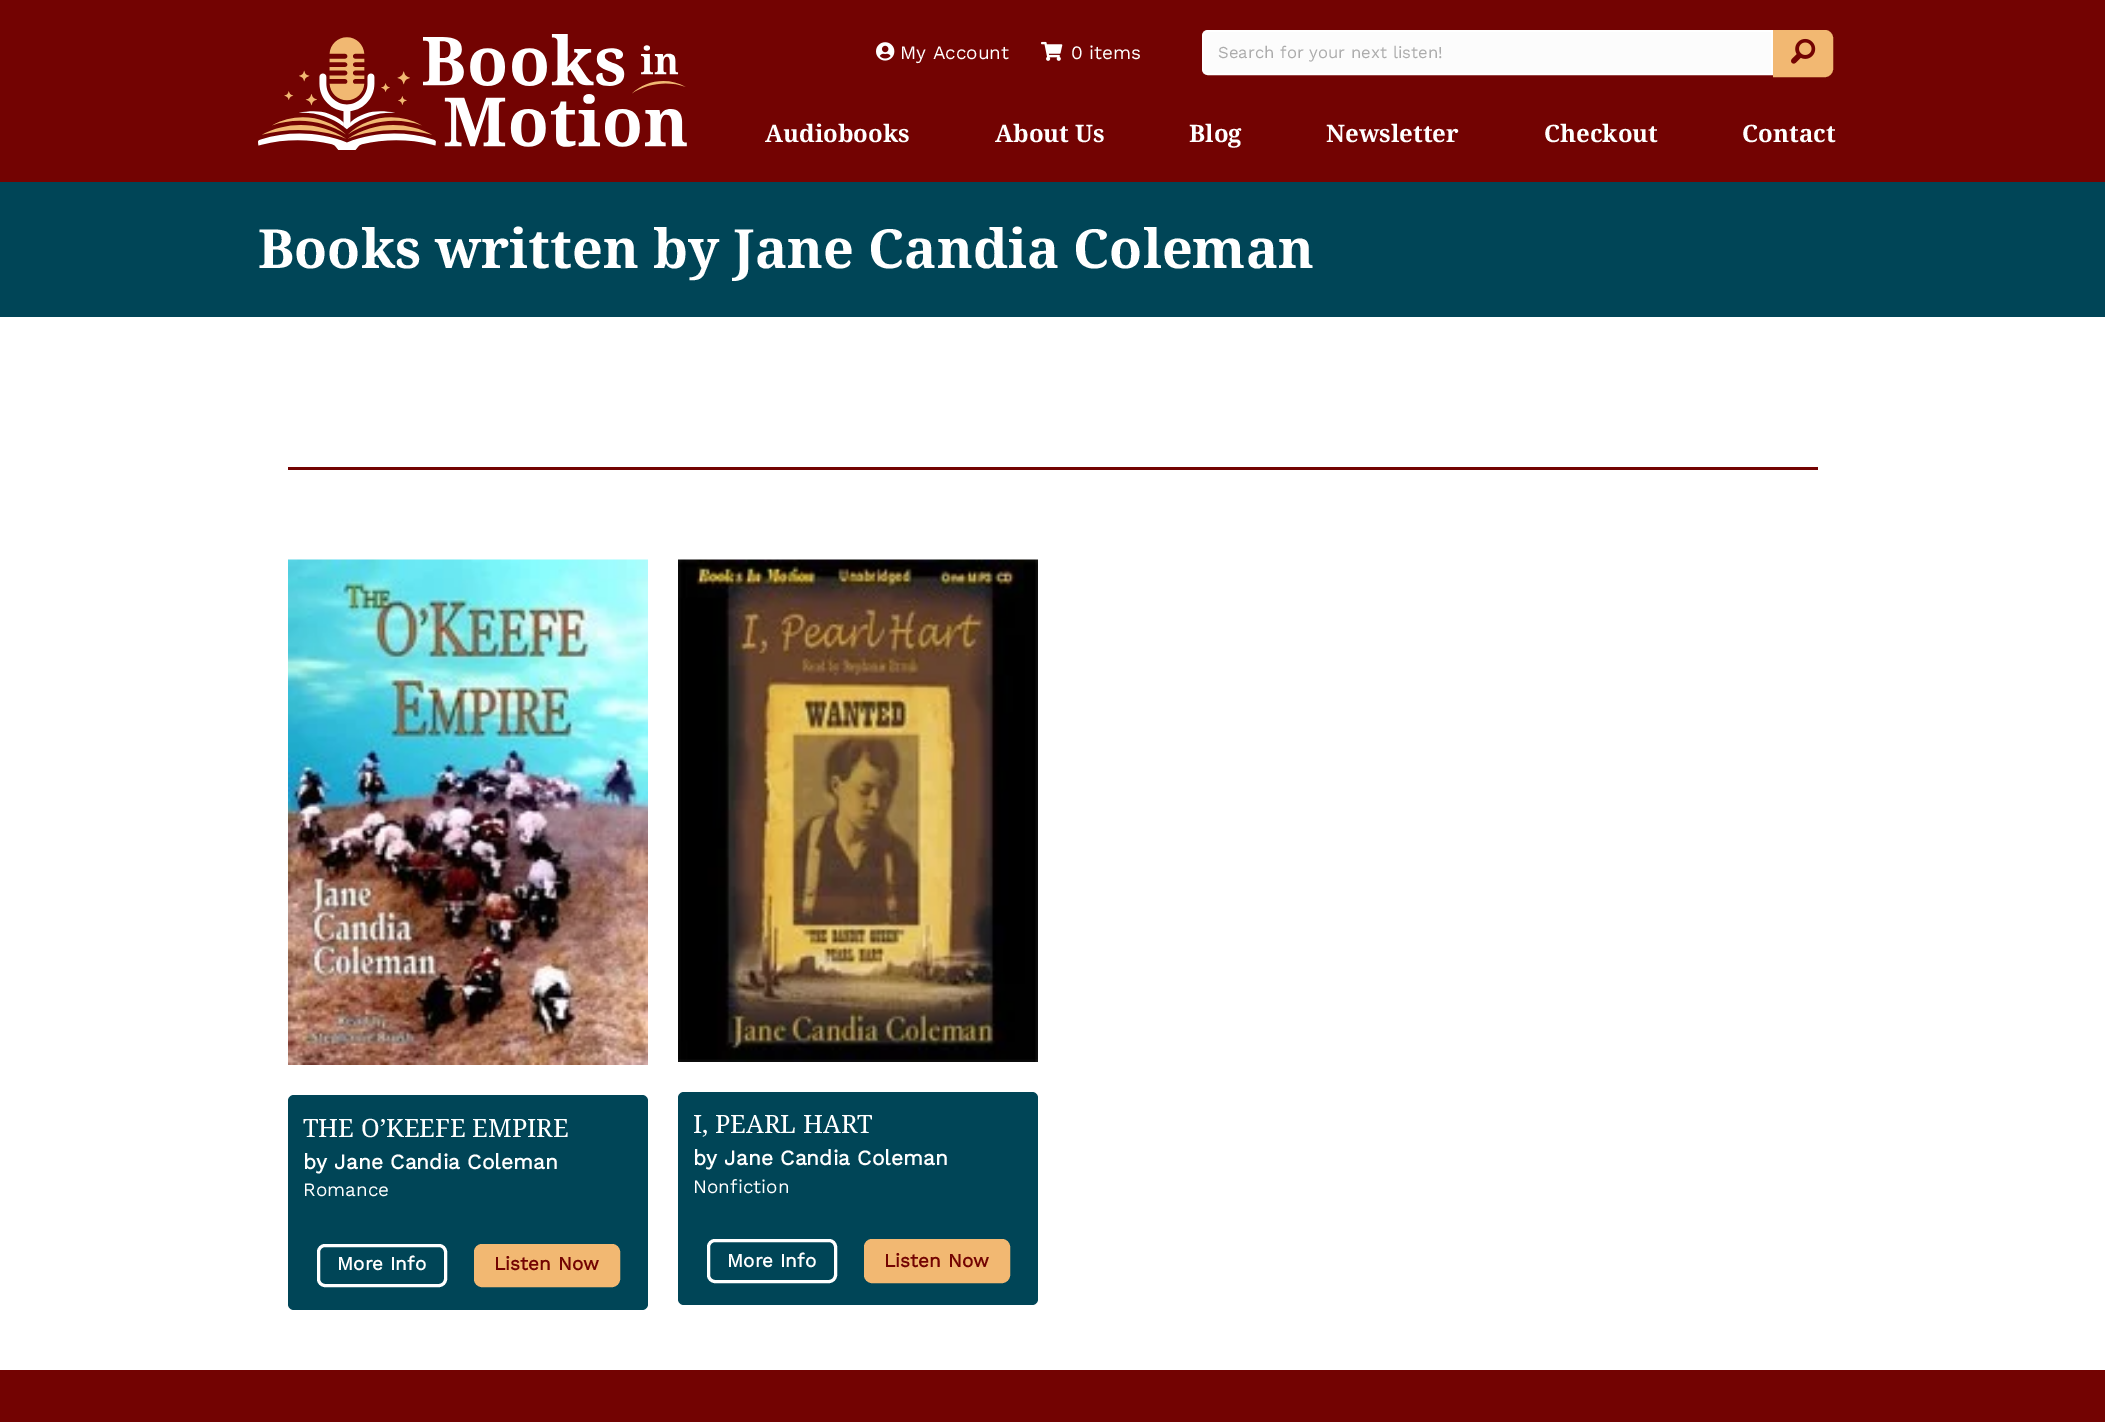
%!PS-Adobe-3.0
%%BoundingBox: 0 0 2105 1422
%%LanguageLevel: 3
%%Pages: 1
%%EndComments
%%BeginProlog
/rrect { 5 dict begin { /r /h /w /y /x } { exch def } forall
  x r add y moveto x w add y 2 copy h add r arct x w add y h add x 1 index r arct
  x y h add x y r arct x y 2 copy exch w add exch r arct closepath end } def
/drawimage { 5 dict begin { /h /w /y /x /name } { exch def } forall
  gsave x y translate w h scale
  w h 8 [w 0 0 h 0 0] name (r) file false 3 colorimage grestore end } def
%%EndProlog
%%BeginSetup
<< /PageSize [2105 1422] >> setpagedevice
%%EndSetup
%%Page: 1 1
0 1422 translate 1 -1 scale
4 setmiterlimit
0.451 0.012 0.008 setrgbcolor
0 0 2105 1422 rectfill
(images/1.raw) 258 34 429 116 drawimage
(images/2.raw) 876 42 19 19 drawimage
(images/3.raw) 1041 41 22 20 drawimage
0.988 setgray
newpath 1208 31 moveto 1772 31 lineto 1772 74 lineto 1208 74 lineto 1205 74 1203 72 1203 69 curveto 1203 36 lineto 1203 33 1205 31 1208 31 curveto closepath gsave fill grestore
1 setgray
2 setlinewidth
stroke
0.949 0.722 0.447 setrgbcolor
newpath 1774.5 31.5 moveto 1825 31.5 lineto 1828.5 31.5 1831.5 34.5 1831.5 38 curveto 1831.5 69 lineto 1831.5 72.5 1828.5 75.5 1825 75.5 curveto 1774.5 75.5 lineto closepath gsave fill grestore
3 setlinewidth
stroke
(images/4.raw) 1791 38 25 26 drawimage
0 0.271 0.341 setrgbcolor
0 182 2105 135 rectfill
1 setgray
0 317 2105 1053 rectfill
0.451 0.012 0.008 setrgbcolor
288 467 1530 3 rectfill
(images/5.raw) 288 559 360 506 drawimage
0 0.271 0.341 setrgbcolor
288 1095 360 215 6 rrect fill
1 setgray
318.5 1245.5 127 40 6.5 rrect stroke
0.949 0.722 0.447 setrgbcolor
475.5 1245.5 143 40 6.5 rrect gsave fill grestore
stroke
(images/6.raw) 678 559 360 503 drawimage
0 0.271 0.341 setrgbcolor
678 1092 360 213 6 rrect fill
1 setgray
708.5 1240.5 127 41 6.5 rrect stroke
0.949 0.722 0.447 setrgbcolor
865.5 1240.5 143 41 6.5 rrect gsave fill grestore
stroke
/WorkSans-Regular [19 0 0 -19 0 0] selectfont
1 setgray
900 59 moveto (My Account) show
1071 59 moveto (0 items) show
/WorkSans-Regular [16.75 0 0 -16.75 0 0] selectfont
0.675 setgray
1218 58 moveto (Search for your next listen!) show
/NotoSerif-Bold [24 0 0 -24 0 0] selectfont
1 setgray
765 142 moveto (Audiobooks) show
995 142 moveto (About Us) show
1189 142 moveto (Blog) show
1326 142 moveto (Newsletter) show
1544 142 moveto (Checkout) show
1742 142 moveto (Contact) show
/NotoSerif-Bold [54 0 0 -54 0 0] selectfont
258 268 moveto (Books written by Jane Candia Coleman) show
/NotoSerif-Regular [25.25 0 0 -25.25 0 0] selectfont
303 1137 moveto (THE O’KEEFE EMPIRE) show
/WorkSans-Bold [21 0 0 -21 0 0] selectfont
303 1169 moveto (by Jane Candia Coleman) show
/WorkSans-Regular [19 0 0 -19 0 0] selectfont
303 1196 moveto (Romance) show
/WorkSans-Bold [19 0 0 -19 0 0] selectfont
337 1270 moveto (More Info) show
0.451 0.012 0.008 setrgbcolor
494 1270 moveto (Listen Now) show
/NotoSerif-Regular [25.25 0 0 -25.25 0 0] selectfont
1 setgray
693 1133 moveto (I, PEARL HART) show
/WorkSans-Bold [21 0 0 -21 0 0] selectfont
693 1165 moveto (by Jane Candia Coleman) show
/WorkSans-Regular [19 0 0 -19 0 0] selectfont
693 1193 moveto (Nonfiction) show
/WorkSans-Bold [19 0 0 -19 0 0] selectfont
727 1267 moveto (More Info) show
0.451 0.012 0.008 setrgbcolor
884 1267 moveto (Listen Now) show
showpage
%%EOF
